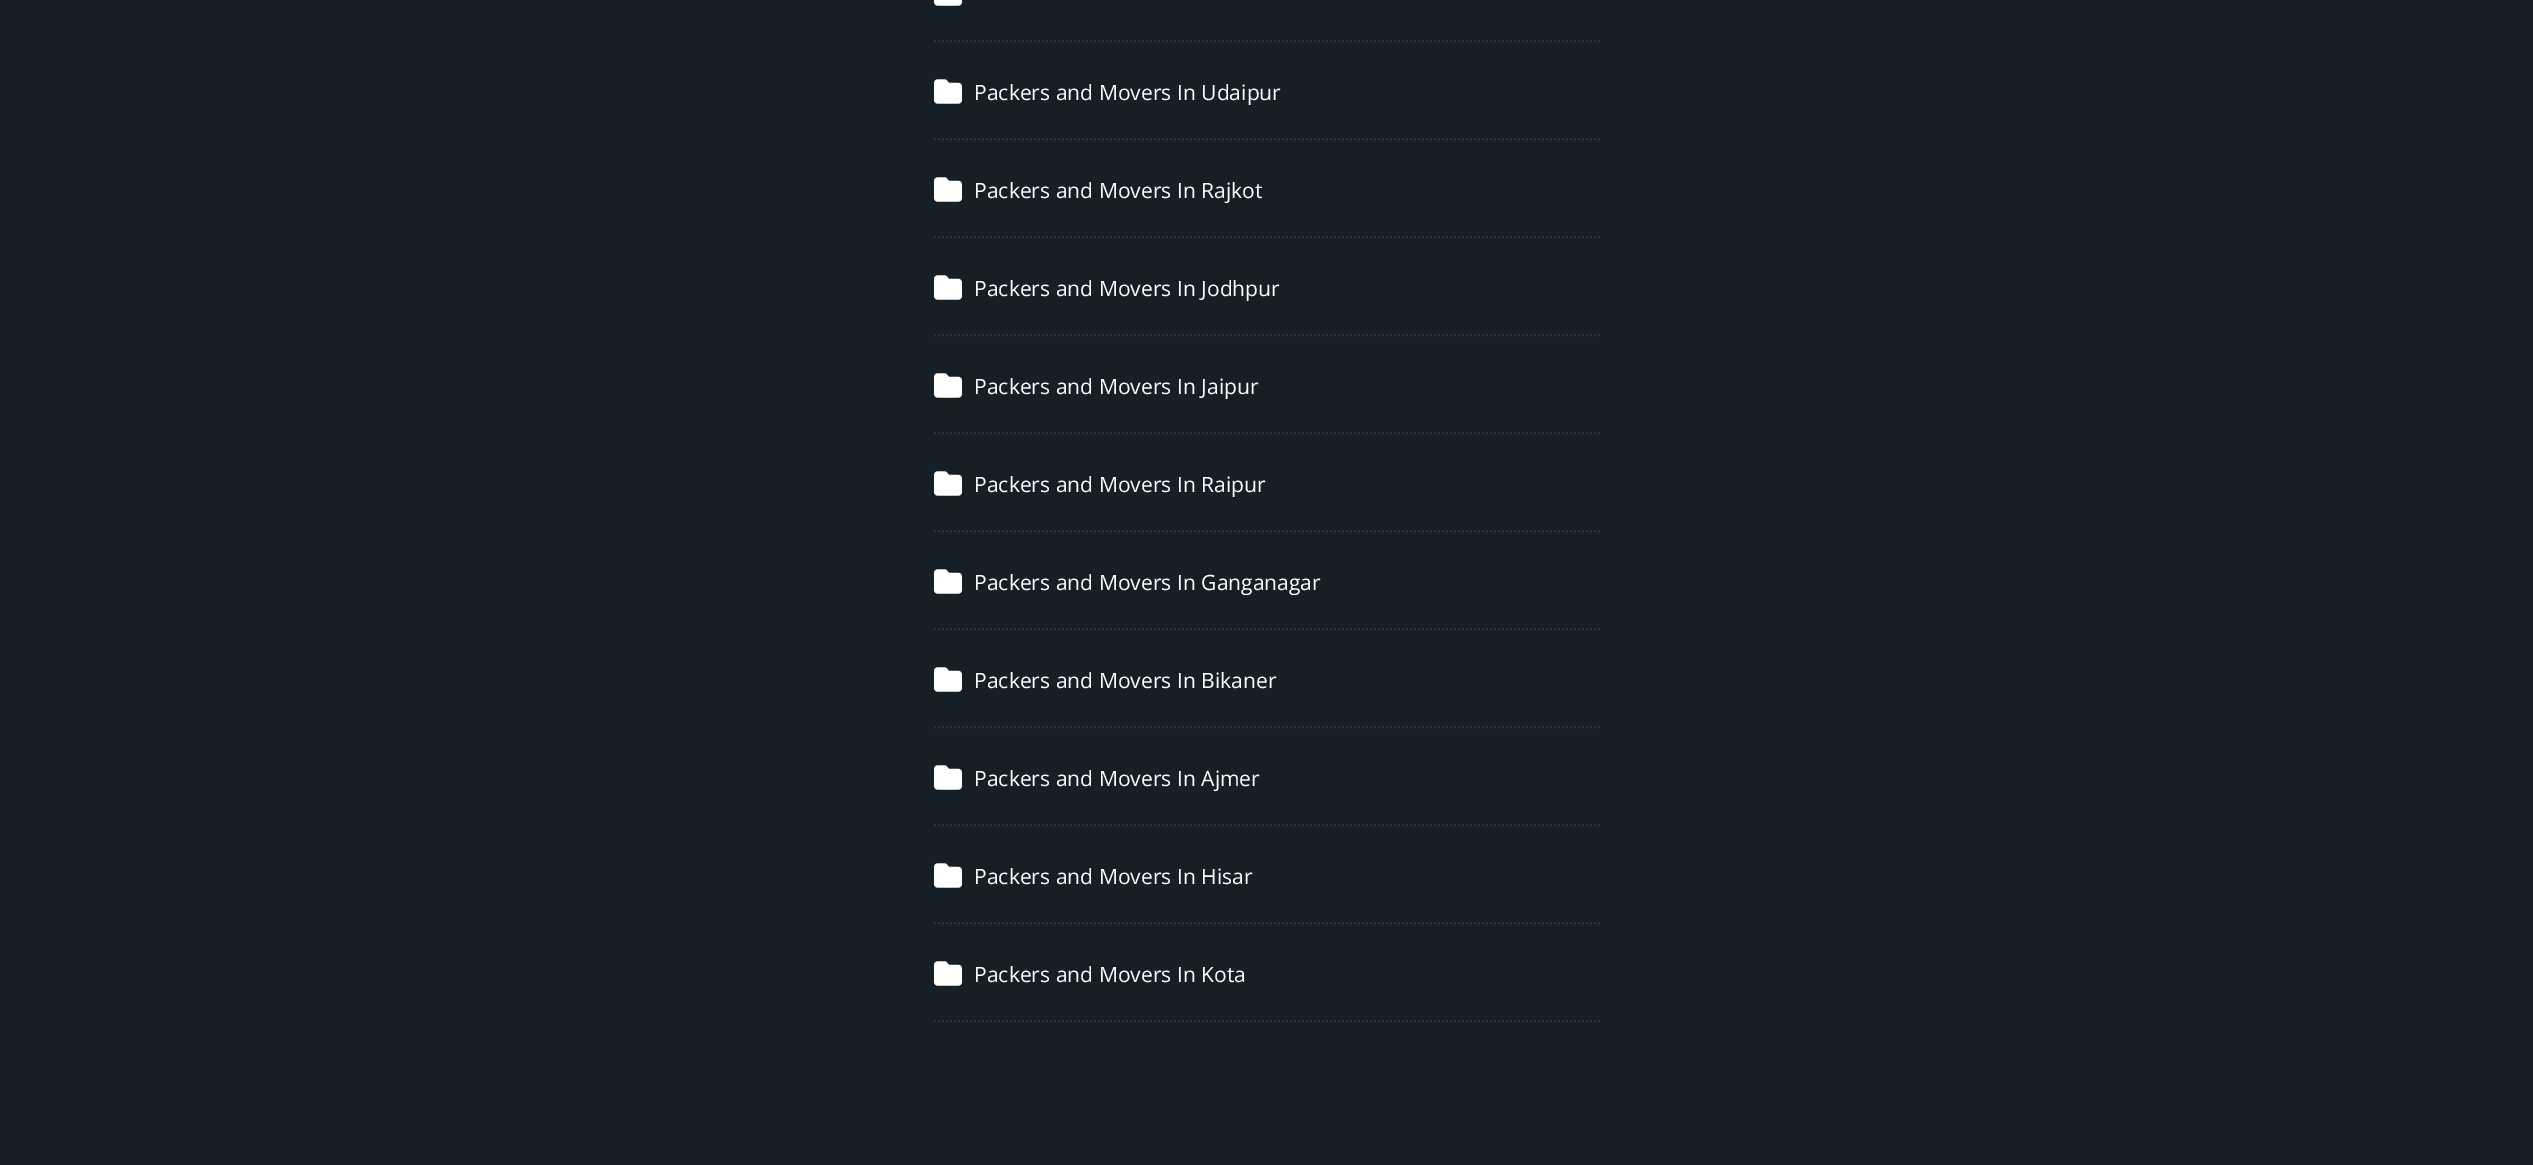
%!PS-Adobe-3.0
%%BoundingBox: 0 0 2533 1165
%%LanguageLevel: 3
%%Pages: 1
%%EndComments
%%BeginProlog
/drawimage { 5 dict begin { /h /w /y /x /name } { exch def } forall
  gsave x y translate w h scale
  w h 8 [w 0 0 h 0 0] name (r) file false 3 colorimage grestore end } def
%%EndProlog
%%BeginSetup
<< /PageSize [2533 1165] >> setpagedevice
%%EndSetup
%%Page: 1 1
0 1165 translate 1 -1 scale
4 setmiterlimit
0.086 0.122 0.149 setrgbcolor
0 0 2533 1165 rectfill
0.173 0.204 0.227 setrgbcolor
2 setlinewidth
[2 2] 0 setdash
newpath 934 41 moveto 1600 41 lineto stroke
(images/1.raw) 934 0 28 6 drawimage
newpath 934 139 moveto 1600 139 lineto stroke
(images/2.raw) 934 79 28 25 drawimage
newpath 934 237 moveto 1600 237 lineto stroke
(images/2.raw) 934 177 28 25 drawimage
newpath 934 335 moveto 1600 335 lineto stroke
(images/2.raw) 934 275 28 25 drawimage
newpath 934 433 moveto 1600 433 lineto stroke
(images/2.raw) 934 373 28 25 drawimage
newpath 934 531 moveto 1600 531 lineto stroke
(images/2.raw) 934 471 28 25 drawimage
newpath 934 629 moveto 1600 629 lineto stroke
(images/2.raw) 934 569 28 25 drawimage
newpath 934 727 moveto 1600 727 lineto stroke
(images/2.raw) 934 667 28 25 drawimage
newpath 934 825 moveto 1600 825 lineto stroke
(images/2.raw) 934 765 28 25 drawimage
newpath 934 923 moveto 1600 923 lineto stroke
(images/2.raw) 934 863 28 25 drawimage
newpath 934 1021 moveto 1600 1021 lineto stroke
(images/2.raw) 934 961 28 25 drawimage
/OpenSans-Regular [21.1 0 0 -21.1 0 0] selectfont
1 setgray
974 100 moveto (Packers and Movers In Udaipur) show
974 198 moveto (Packers and Movers In Rajkot) show
974 296 moveto (Packers and Movers In Jodhpur) show
974 394 moveto (Packers and Movers In Jaipur) show
974 492 moveto (Packers and Movers In Raipur) show
974 590 moveto (Packers and Movers In Ganganagar) show
974 688 moveto (Packers and Movers In Bikaner) show
974 786 moveto (Packers and Movers In Ajmer) show
974 884 moveto (Packers and Movers In Hisar) show
974 982 moveto (Packers and Movers In Kota) show
showpage
%%EOF
